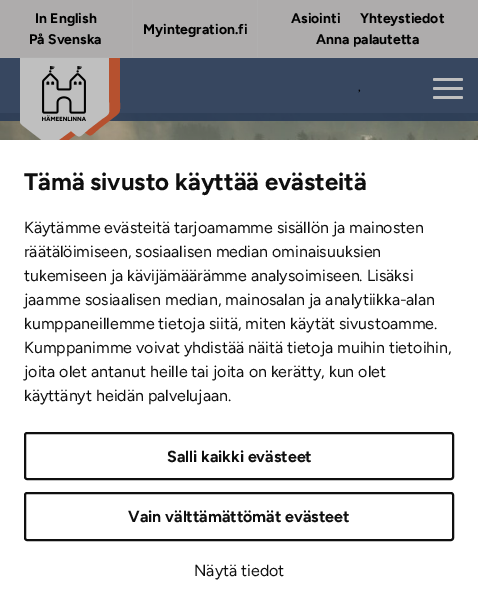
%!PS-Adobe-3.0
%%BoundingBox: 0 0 478 612
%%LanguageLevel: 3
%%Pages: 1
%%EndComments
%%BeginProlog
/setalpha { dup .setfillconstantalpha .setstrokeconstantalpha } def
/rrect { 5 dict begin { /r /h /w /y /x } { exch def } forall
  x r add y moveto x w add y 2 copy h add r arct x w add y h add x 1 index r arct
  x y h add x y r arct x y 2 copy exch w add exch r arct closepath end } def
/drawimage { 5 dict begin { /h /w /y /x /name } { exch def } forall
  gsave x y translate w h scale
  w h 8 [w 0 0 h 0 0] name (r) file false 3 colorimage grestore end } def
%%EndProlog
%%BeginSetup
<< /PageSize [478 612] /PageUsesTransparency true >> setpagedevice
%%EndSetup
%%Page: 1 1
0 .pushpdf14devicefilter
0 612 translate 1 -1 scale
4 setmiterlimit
0.749 setgray
0 0 478 612 rectfill
(images/3.raw) 0 113 478 27 drawimage
0.9 setalpha
0.157 0.227 0.337 setrgbcolor
0 58 478 63 rectfill
1 setalpha
0.682 0.675 0.675 setrgbcolor
0 0 478 57 rectfill
0.69 0.686 0.686 setrgbcolor
0 57 478 1 rectfill
132 0 1 57 rectfill
257 0 1 57 rectfill
0.714 0.318 0.184 setrgbcolor
newpath 31 58 moveto 31 120 lineto 31 122 32 123 33 124 curveto 59 144 lineto 60 145 62 145 63 144 curveto 82 130 lineto 92 138 89 137 100 128 curveto 113 118 lineto 121 112 120 113 120 102 curveto 120 58 lineto closepath fill
0.749 setgray
newpath 20 58 moveto 20 121 lineto 20 123 21 124 22 125 curveto 48 145 lineto 49 146 51 146 52 145 curveto 71 131 lineto 81 139 78 138 89 129 curveto 102 119 lineto 111 113 109 114 109 102 curveto 109 58 lineto closepath fill
(images/1.raw) 42 66 44 55 drawimage
(images/2.raw) 358 89 3 4 drawimage
433 87 30 3 1.5 rrect fill
433 78 30 3 1.5 rrect fill
433 96 30 3 1.5 rrect fill
1 setgray
0 140 478 472 rectfill
0.059 setgray
2 setlinewidth
25 433 428 46 2 rrect stroke
25 493 428 47 2 rrect stroke
/Figtree-Light [14 0 0 -14 0 0] selectfont
0 setgray
35 23 moveto (In English) show
29 44 moveto (På Svenska) show
143 34 moveto (Myintegration.fi) show
291 23 moveto (Asiointi) show
360 23 moveto (Yhteystiedot) show
316 44 moveto (Anna palautetta) show
/Figtree-Light [24 0 0 -24 0 0] selectfont
0.059 setgray
24 190 moveto (Tämä sivusto käyttää evästeitä) show
/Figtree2-Light [16 0 0 -16 0 0] selectfont
24 233 moveto (Käytämme evästeitä tarjoamamme sisällön ja mainosten) show
24 257 moveto (räätälöimiseen, sosiaalisen median ominaisuuksien) show
24 281 moveto (tukemiseen ja kävijämäärämme analysoimiseen. Lisäksi) show
24 305 moveto (jaamme sosiaalisen median, mainosalan ja analytiikka-alan) show
24 329 moveto (kumppaneillemme tietoja siitä, miten käytät sivustoamme.) show
24 353 moveto (Kumppanimme voivat yhdistää näitä tietoja muihin tietoihin,) show
24 377 moveto (joita olet antanut heille tai joita on kerätty, kun olet) show
24 401 moveto (käyttänyt heidän palvelujaan.) show
/Figtree-Light [16 0 0 -16 0 0] selectfont
167 462 moveto (Salli kaikki evästeet) show
128 522 moveto (Vain välttämättömät evästeet) show
/Figtree2-Light [16 0 0 -16 0 0] selectfont
194 576 moveto (Näytä tiedot) show
.poppdf14devicefilter showpage
%%EOF
